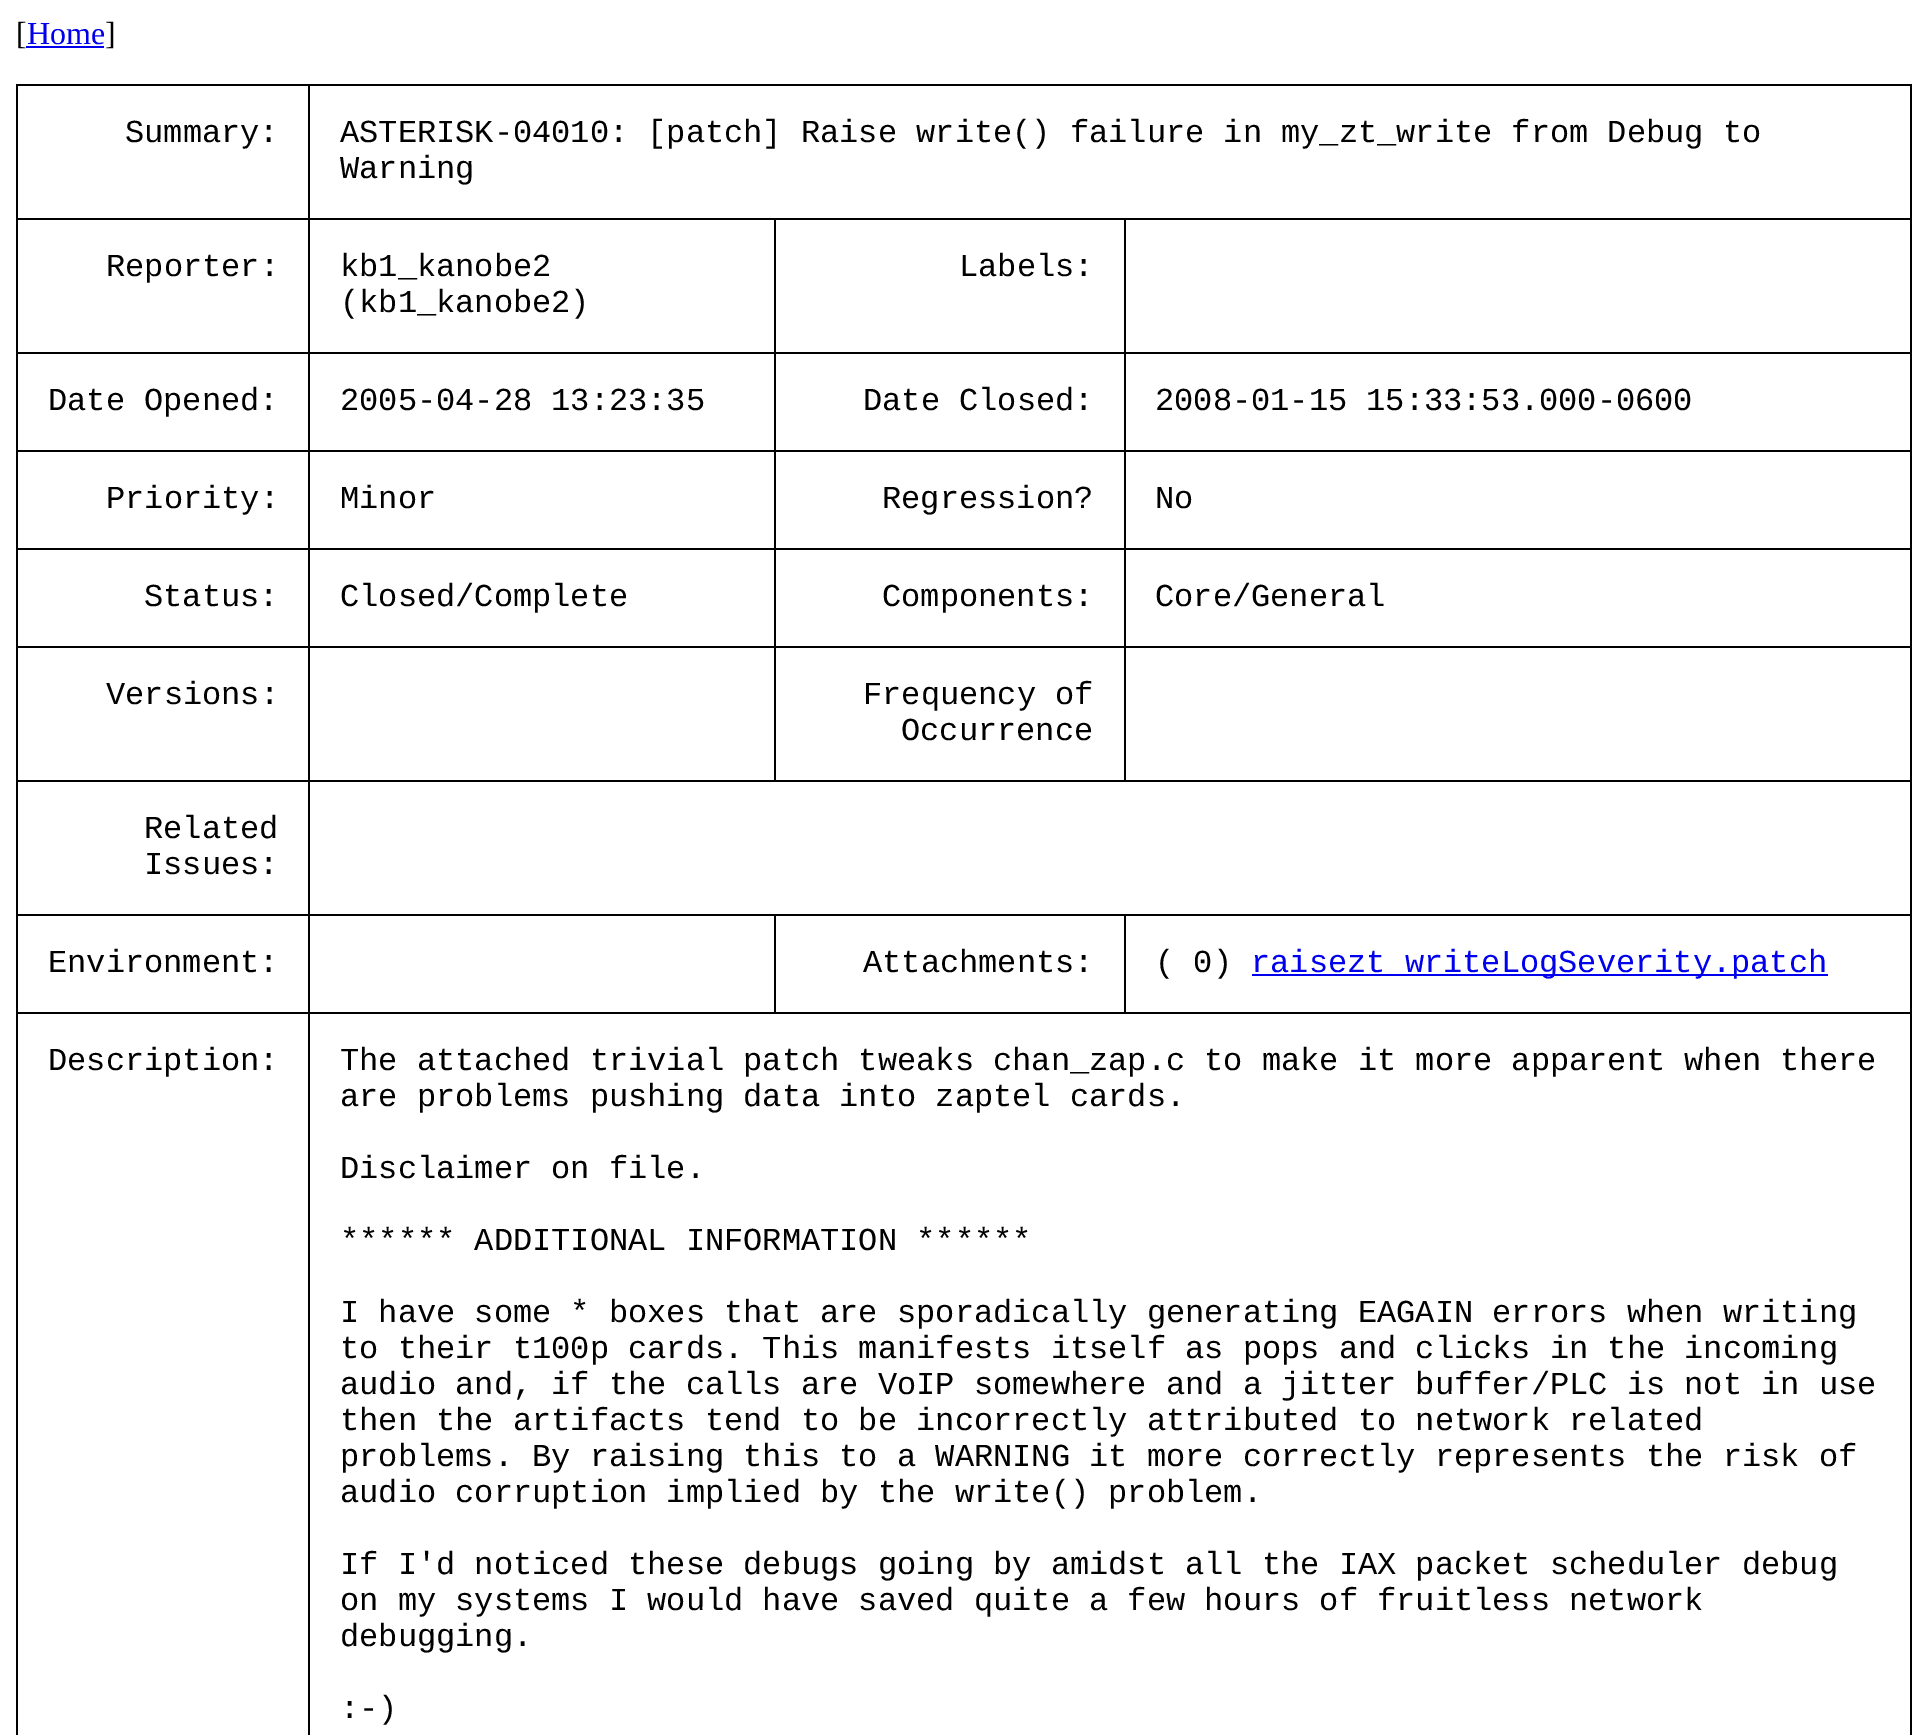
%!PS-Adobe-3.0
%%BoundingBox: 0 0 1928 1735
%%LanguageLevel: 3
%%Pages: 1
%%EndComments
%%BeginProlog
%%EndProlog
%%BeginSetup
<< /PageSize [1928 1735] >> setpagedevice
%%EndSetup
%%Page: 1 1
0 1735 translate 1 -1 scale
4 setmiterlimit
1 setgray
0 0 1928 1735 rectfill
0 0 0.933 setrgbcolor
26 46 78 2 rectfill
0 setgray
308 84 1604 2 rectfill
1124 218 788 2 rectfill
1124 352 788 2 rectfill
1124 450 788 2 rectfill
1124 548 788 2 rectfill
1124 646 788 2 rectfill
308 780 1604 2 rectfill
1124 646 2 136 rectfill
774 646 352 2 rectfill
1124 548 2 100 rectfill
774 548 352 2 rectfill
1124 450 2 100 rectfill
774 450 352 2 rectfill
1124 352 2 100 rectfill
774 352 352 2 rectfill
1124 218 2 136 rectfill
774 218 352 2 rectfill
774 646 2 136 rectfill
308 646 468 2 rectfill
774 548 2 100 rectfill
308 548 468 2 rectfill
774 450 2 100 rectfill
308 450 468 2 rectfill
774 352 2 100 rectfill
308 352 468 2 rectfill
774 218 2 136 rectfill
308 218 468 2 rectfill
1124 914 788 2 rectfill
308 1012 1604 2 rectfill
1124 914 2 100 rectfill
774 914 352 2 rectfill
774 914 2 100 rectfill
308 914 468 2 rectfill
308 1012 2 723 rectfill
16 1012 294 2 rectfill
308 914 2 100 rectfill
16 914 294 2 rectfill
308 780 2 136 rectfill
16 780 294 2 rectfill
308 646 2 136 rectfill
16 646 294 2 rectfill
308 548 2 100 rectfill
16 548 294 2 rectfill
308 450 2 100 rectfill
16 450 294 2 rectfill
308 352 2 100 rectfill
16 352 294 2 rectfill
308 218 2 136 rectfill
16 218 294 2 rectfill
308 84 2 136 rectfill
16 84 294 2 rectfill
16 1012 2 723 rectfill
16 914 2 100 rectfill
16 780 2 136 rectfill
16 646 2 136 rectfill
16 548 2 100 rectfill
16 450 2 100 rectfill
16 352 2 100 rectfill
16 218 2 136 rectfill
16 84 2 136 rectfill
1910 1012 2 723 rectfill
1910 914 2 100 rectfill
1910 780 2 136 rectfill
1910 646 2 136 rectfill
1910 548 2 100 rectfill
1910 450 2 100 rectfill
1910 352 2 100 rectfill
1910 218 2 136 rectfill
1910 84 2 136 rectfill
0 0 0.933 setrgbcolor
1252 974 576 2 rectfill
/LiberationSerif-Regular [32 0 0 -32 0 0] selectfont
0 setgray
16 44 moveto ([) show
0 0 0.933 setrgbcolor
27 44 moveto (Home) show
0 setgray
105 44 moveto (]) show
/LiberationMono-Regular [32 0 0 -32 0 0] selectfont
125 142 moveto (Summary:) show
340 142 moveto (ASTERISK-04010: [patch] Raise write\(\) failure in my_zt_write from Debug to) show
340 178 moveto (Warning) show
106 276 moveto (Reporter:) show
340 276 moveto (kb1_kanobe2) show
340 312 moveto (\(kb1_kanobe2\)) show
959 276 moveto (Labels:) show
48 410 moveto (Date Opened:) show
340 410 moveto (2005-04-28 13:23:35) show
863 410 moveto (Date Closed:) show
1155 410 moveto (2008-01-15 15:33:53.000-0600) show
106 508 moveto (Priority:) show
340 508 moveto (Minor) show
882 508 moveto (Regression?) show
1155 508 moveto (No) show
144 606 moveto (Status:) show
340 606 moveto (Closed/Complete) show
882 606 moveto (Components:) show
1155 606 moveto (Core/General) show
106 704 moveto (Versions:) show
863 704 moveto (Frequency of) show
901 740 moveto (Occurrence) show
144 838 moveto (Related) show
144 874 moveto (Issues:) show
48 972 moveto (Environment:) show
863 972 moveto (Attachments:) show
1155 972 moveto (\( 0\)) show
0 0 0.933 setrgbcolor
1251 972 moveto (raisezt_writeLogSeverity.patch) show
0 setgray
48 1070 moveto (Description:) show
340 1070 moveto (The attached trivial patch tweaks chan_zap.c to make it more apparent when there) show
340 1106 moveto (are problems pushing data into zaptel cards.) show
340 1178 moveto (Disclaimer on file.) show
340 1250 moveto (****** ADDITIONAL INFORMATION ******) show
340 1322 moveto (I have some * boxes that are sporadically generating EAGAIN errors when writing) show
340 1358 moveto (to their t100p cards. This manifests itself as pops and clicks in the incoming) show
340 1394 moveto (audio and, if the calls are VoIP somewhere and a jitter buffer/PLC is not in use) show
340 1430 moveto (then the artifacts tend to be incorrectly attributed to network related) show
340 1466 moveto (problems. By raising this to a WARNING it more correctly represents the risk of) show
340 1502 moveto (audio corruption implied by the write\(\) problem.) show
340 1574 moveto (If I'd noticed these debugs going by amidst all the IAX packet scheduler debug) show
340 1610 moveto (on my systems I would have saved quite a few hours of fruitless network) show
340 1646 moveto (debugging.) show
340 1718 moveto (:-\)) show
showpage
%%EOF
